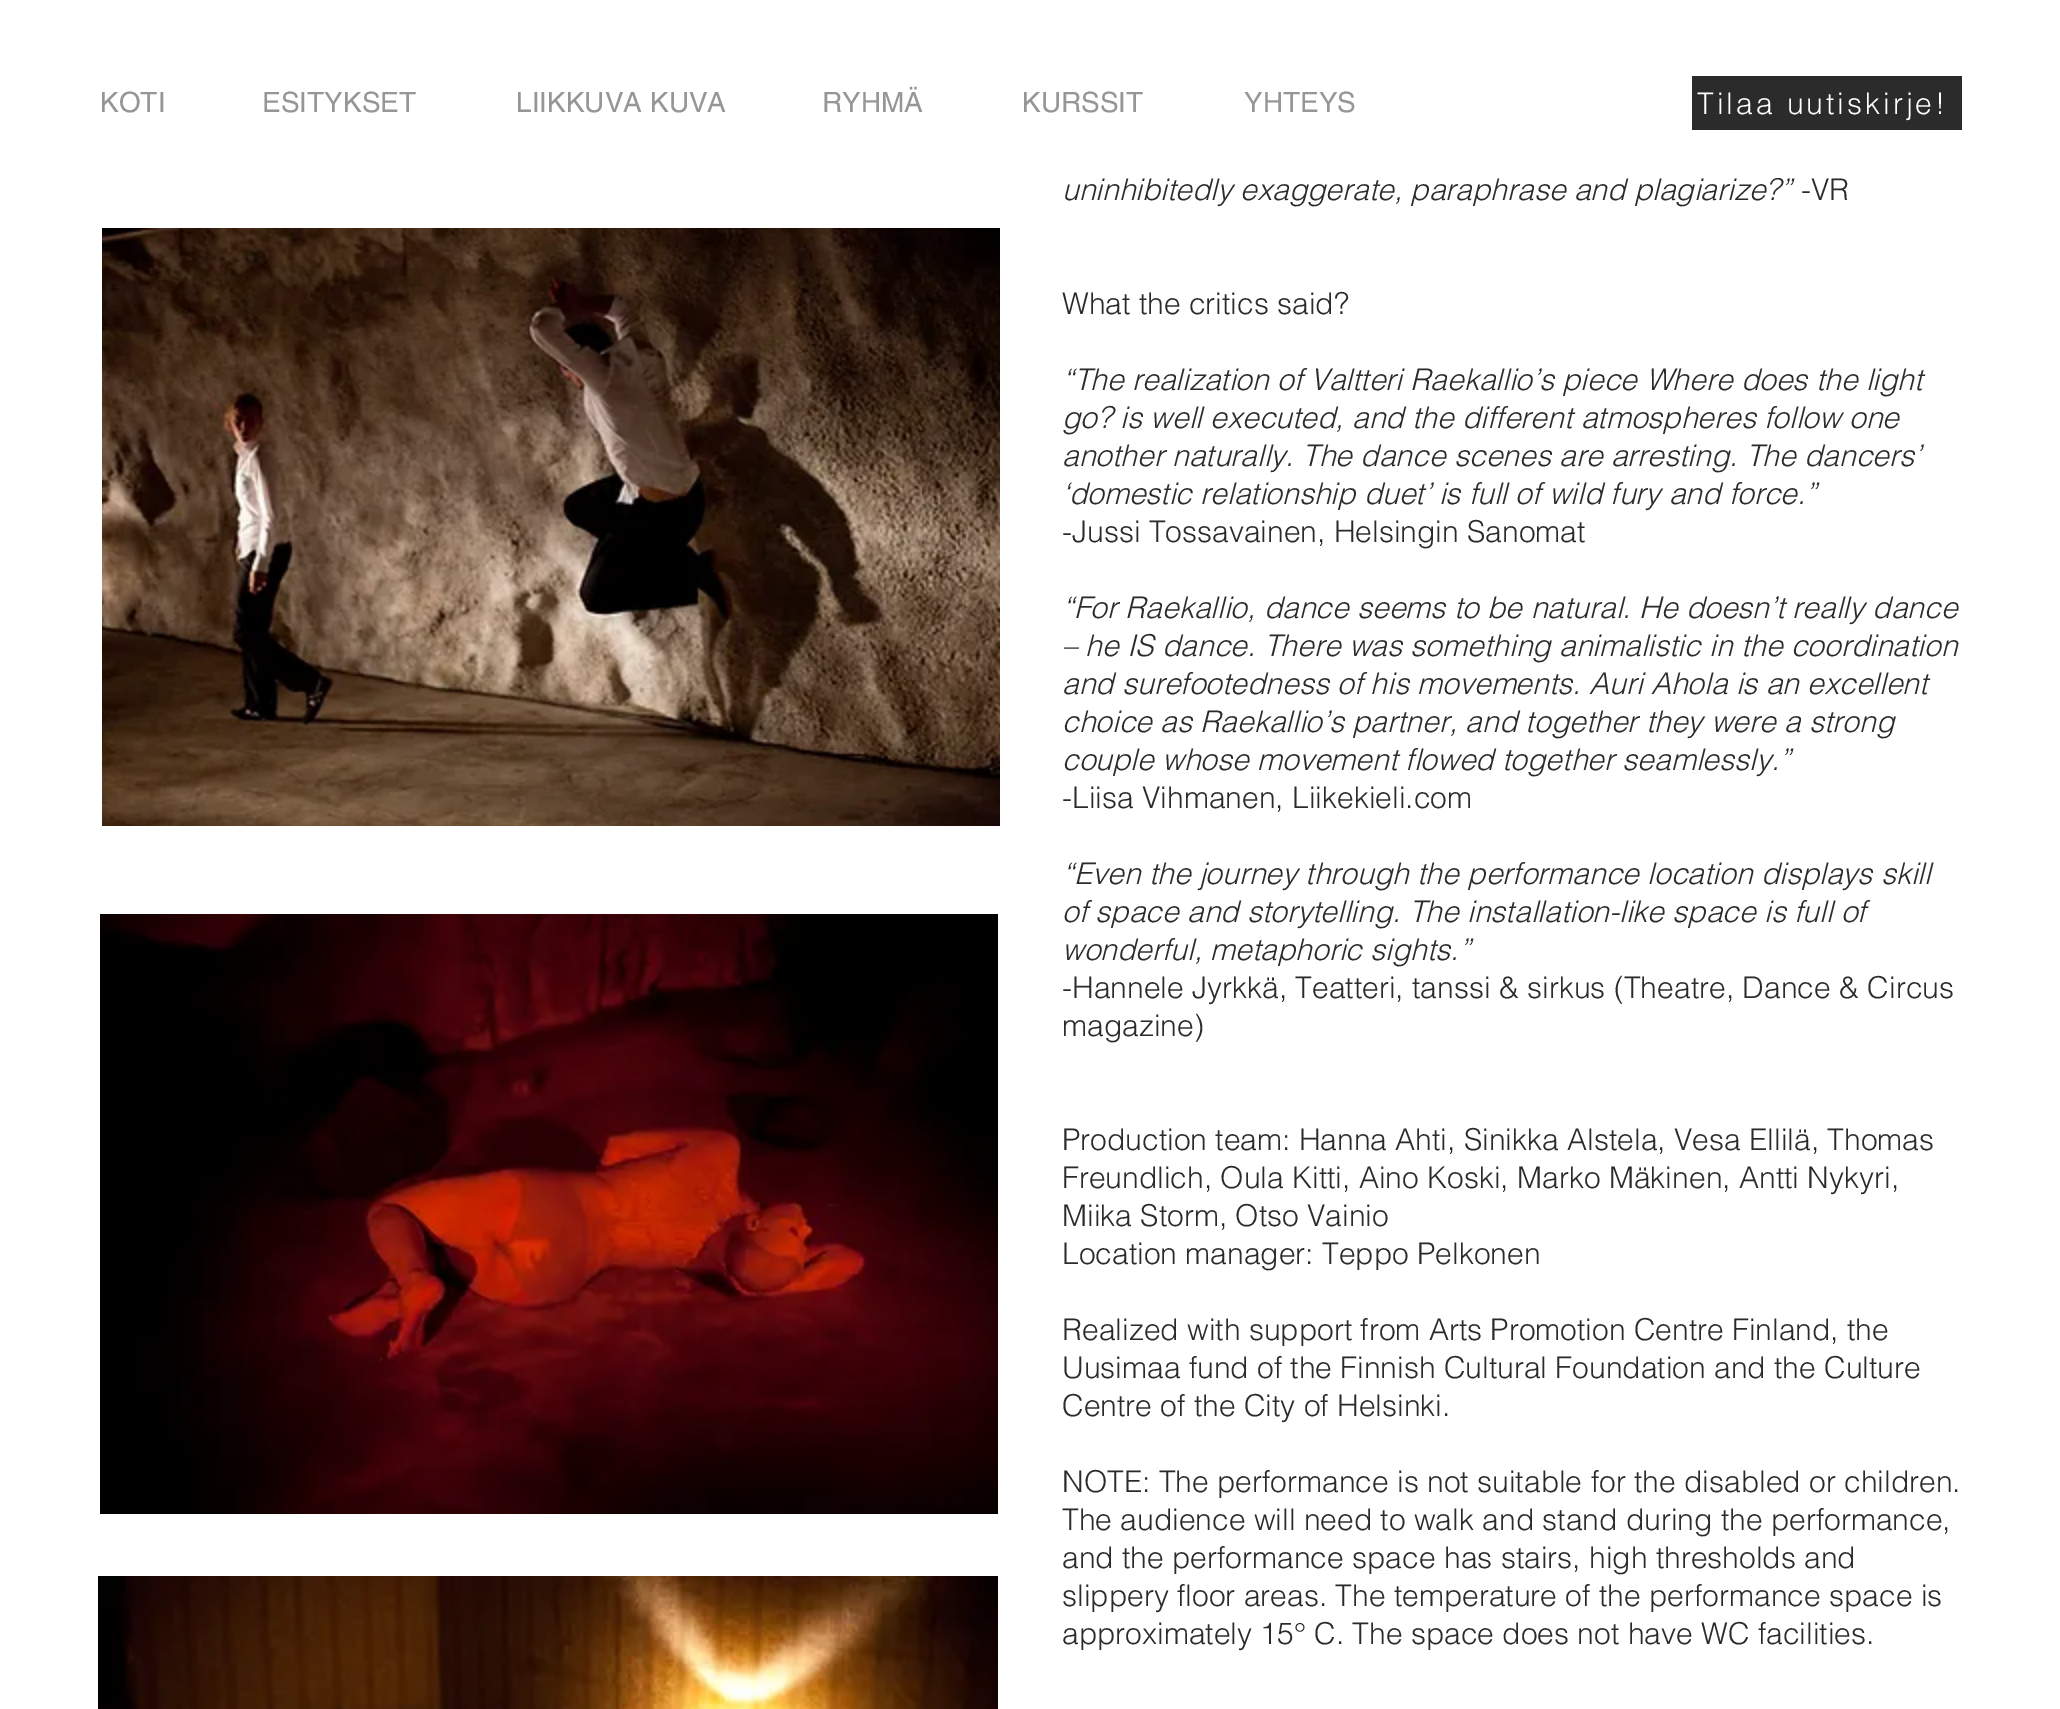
%!PS-Adobe-3.0
%%BoundingBox: 0 0 2060 1709
%%LanguageLevel: 3
%%Pages: 1
%%EndComments
%%BeginProlog
/drawimage { 5 dict begin { /h /w /y /x /name } { exch def } forall
  gsave x y translate w h scale
  w h 8 [w 0 0 h 0 0] name (r) file false 3 colorimage grestore end } def
%%EndProlog
%%BeginSetup
<< /PageSize [2060 1709] >> setpagedevice
%%EndSetup
%%Page: 1 1
0 1709 translate 1 -1 scale
4 setmiterlimit
1 setgray
0 0 2060 1709 rectfill
0.169 setgray
1692 76 270 54 rectfill
(images/1.raw) 102 228 898 598 drawimage
(images/2.raw) 100 914 898 600 drawimage
(images/3.raw) 98 1576 900 133 drawimage
/helvetica-Regular [28 0 0 -28 0 0] selectfont
0.592 0.584 0.584 setrgbcolor
100 112 moveto (KOTI) show
262 112 moveto (ESITYKSET) show
516 112 moveto (LIIKKUVA KUVA) show
822 112 moveto (RYHMÄ) show
1022 112 moveto (KURSSIT) show
1244 112 moveto (YHTEYS) show
/helvetica-Light [30 0 0 -30 0 0] selectfont
1 setgray
1697 114 moveto 3 0 (Tilaa uutiskirje!) ashow
/helvetica-LightItalic [30 0 0 -30 0 0] selectfont
0.169 setgray
1062 200 moveto (uninhibitedly exaggerate, paraphrase and plagiarize?”) show
1 setgray
1777 177 4 1 rectfill
/helvetica-Light [30 0 0 -30 0 0] selectfont
0.169 setgray
1801 200 moveto (-VR) show
1062 314 moveto (What the critics said?) show
/helvetica-LightItalic [30 0 0 -30 0 0] selectfont
1062 390 moveto (“The realization of Valtteri Raekallio’s piece Where does the light) show
1062 428 moveto (go? is well executed, and the different atmospheres follow one) show
1062 466 moveto (another naturally. The dance scenes are arresting. The dancers’) show
1062 504 moveto (‘domestic relationship duet’ is full of wild fury and force.”) show
/helvetica-Light [30 0 0 -30 0 0] selectfont
1062 542 moveto (-Jussi Tossavainen, Helsingin Sanomat) show
/helvetica-LightItalic [30 0 0 -30 0 0] selectfont
1062 618 moveto (“For Raekallio, dance seems to be natural. He doesn’t really dance) show
1062 656 moveto (– he IS dance. There was something animalistic in the coordination) show
1062 694 moveto (and surefootedness of his movements. Auri Ahola is an excellent) show
1062 732 moveto (choice as Raekallio’s partner, and together they were a strong) show
1062 770 moveto (couple whose movement flowed together seamlessly.”) show
/helvetica-Light [30 0 0 -30 0 0] selectfont
1062 808 moveto (-Liisa Vihmanen, Liikekieli.com) show
/helvetica-LightItalic [30 0 0 -30 0 0] selectfont
1062 884 moveto (“Even the journey through the performance location displays skill) show
1062 922 moveto (of space and storytelling. The installation-like space is full of) show
1062 960 moveto (wonderful, metaphoric sights.”) show
/helvetica-Light [30 0 0 -30 0 0] selectfont
1062 998 moveto (-Hannele Jyrkkä, Teatteri, tanssi & sirkus \(Theatre, Dance & Circus) show
1062 1036 moveto (magazine\)) show
1062 1150 moveto (Production team: Hanna Ahti, Sinikka Alstela, Vesa Ellilä, Thomas) show
1062 1188 moveto (Freundlich, Oula Kitti, Aino Koski, Marko Mäkinen, Antti Nykyri,) show
1062 1226 moveto (Miika Storm, Otso Vainio) show
1062 1264 moveto (Location manager: Teppo Pelkonen) show
1062 1340 moveto (Realized with support from Arts Promotion Centre Finland, the) show
1062 1378 moveto (Uusimaa fund of the Finnish Cultural Foundation and the Culture) show
1062 1416 moveto (Centre of the City of Helsinki.) show
1062 1492 moveto (NOTE: The performance is not suitable for the disabled or children.) show
1062 1530 moveto (The audience will need to walk and stand during the performance,) show
1062 1568 moveto (and the performance space has stairs, high thresholds and) show
1062 1606 moveto (slippery floor areas. The temperature of the performance space is) show
1062 1644 moveto (approximately 15° C. The space does not have WC facilities.) show
showpage
%%EOF
